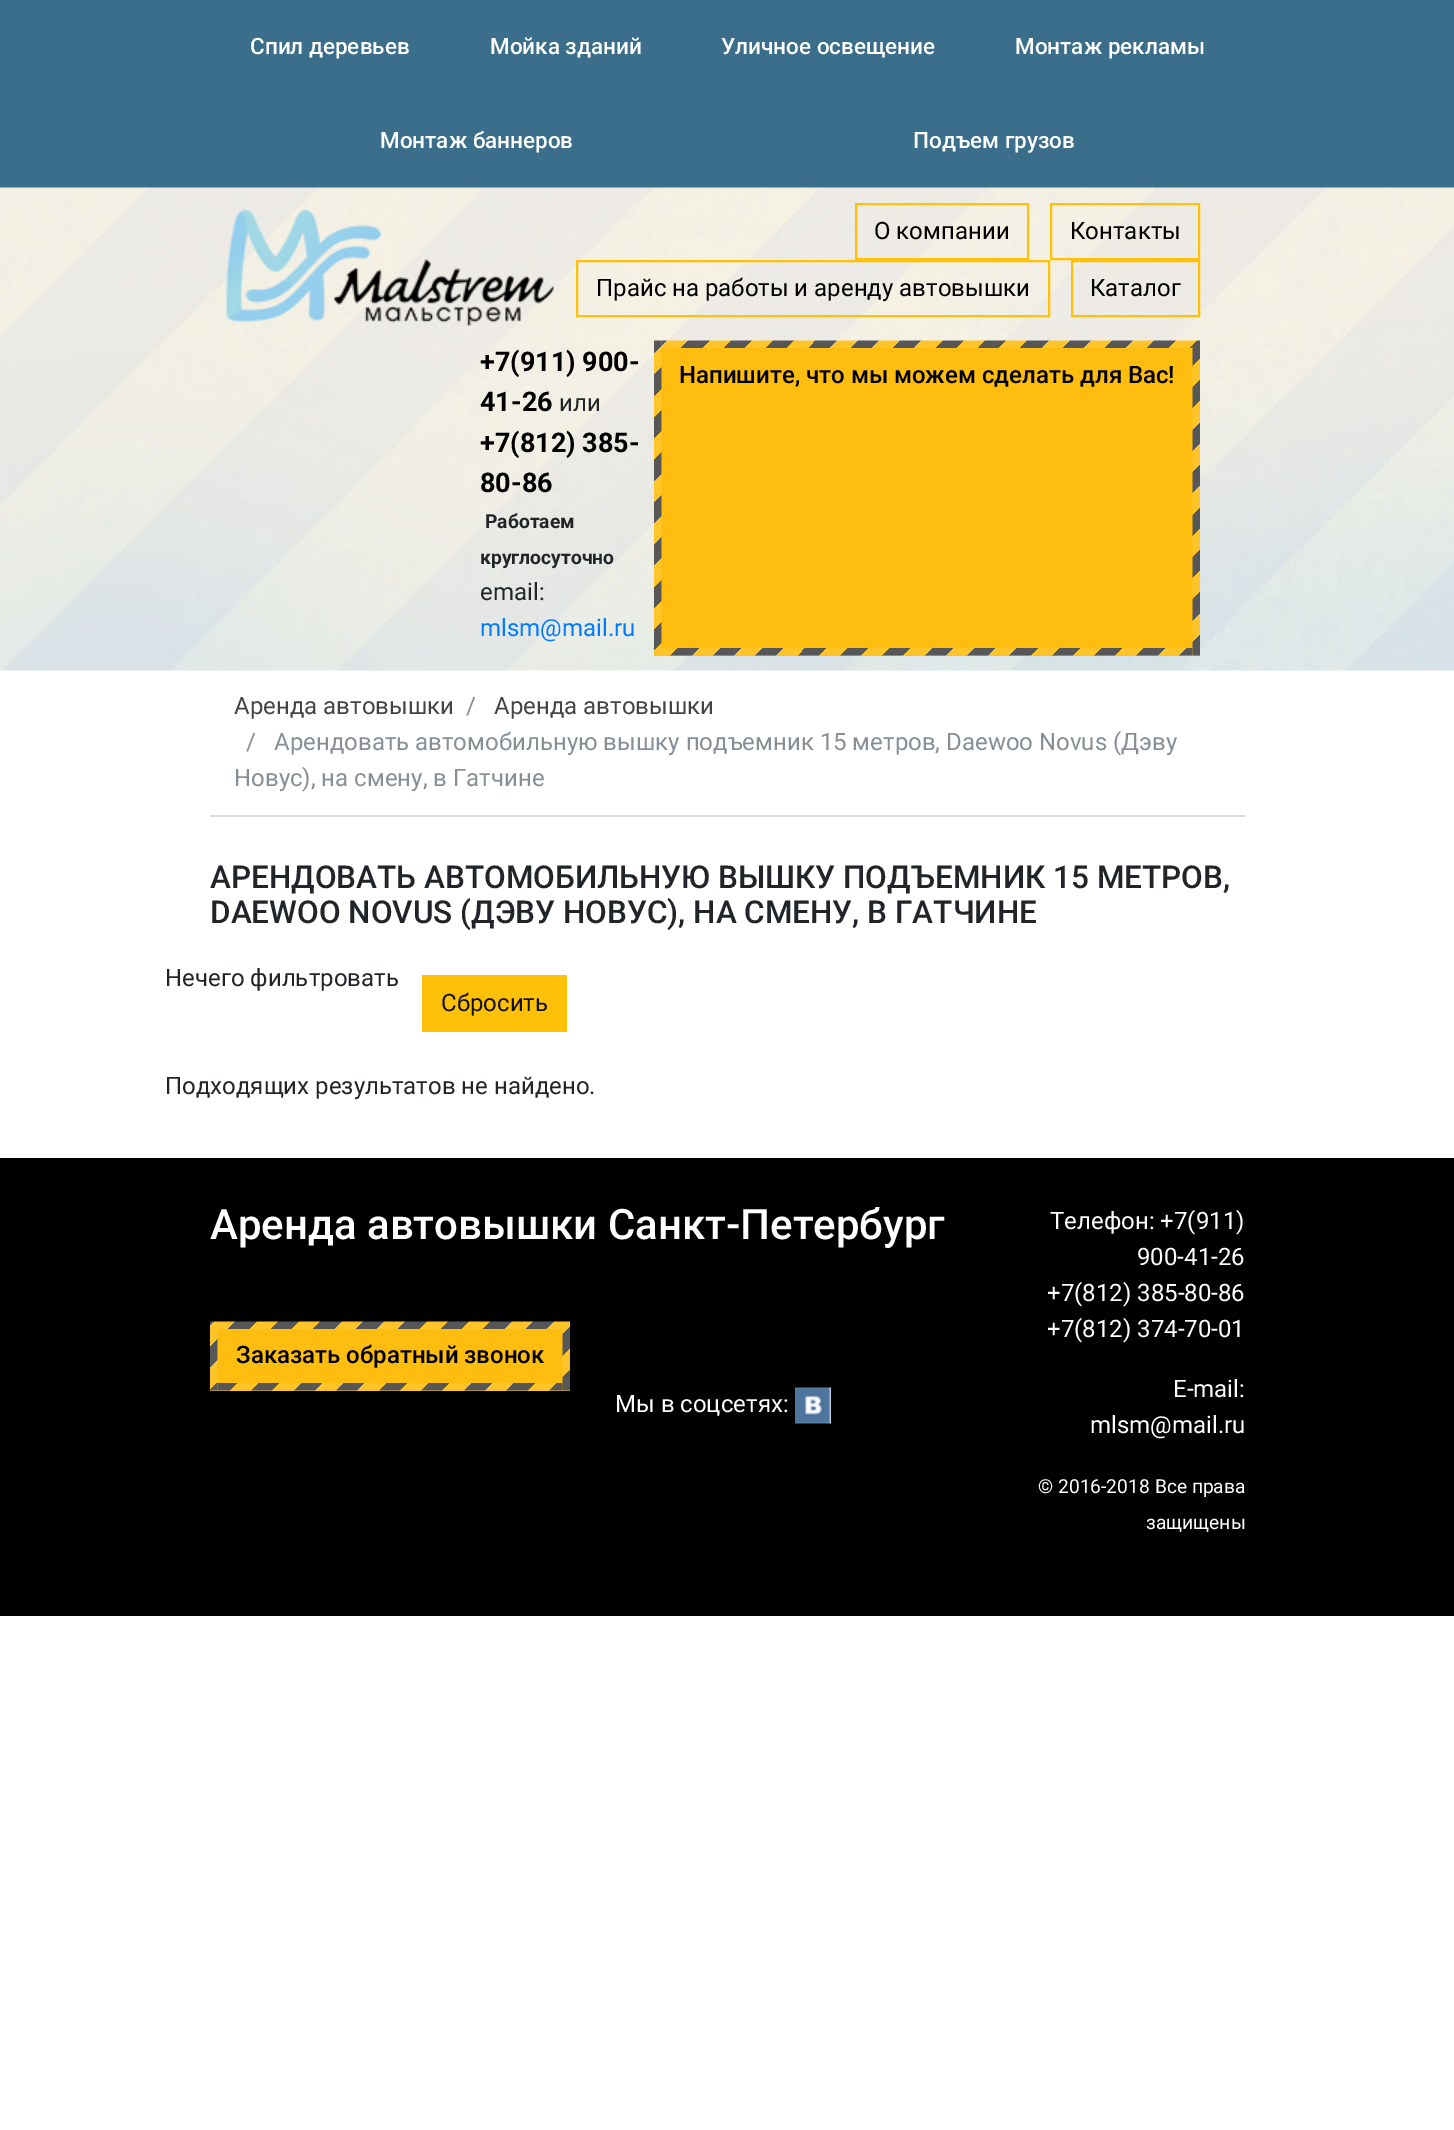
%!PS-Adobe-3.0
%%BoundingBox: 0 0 1454 2130
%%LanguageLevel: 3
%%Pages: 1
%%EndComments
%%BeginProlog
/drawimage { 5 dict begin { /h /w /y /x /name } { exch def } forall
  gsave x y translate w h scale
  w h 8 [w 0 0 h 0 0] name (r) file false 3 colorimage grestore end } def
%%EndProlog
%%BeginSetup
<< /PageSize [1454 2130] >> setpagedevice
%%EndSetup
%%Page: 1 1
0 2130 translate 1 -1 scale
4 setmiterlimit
1 setgray
0 0 1454 2130 rectfill
0.227 0.431 0.545 setrgbcolor
0 0 1454 188 rectfill
(images/1.raw) 0 187 1454 484 drawimage
(images/2.raw) 226 209 328 117 drawimage
1 0.757 0.027 setrgbcolor
2 setlinewidth
856 204 172 55 rectstroke
1051 204 148 55 rectstroke
577 261 472 55 rectstroke
1072 261 127 55 rectstroke
1 0.745 0.059 setrgbcolor
654 341 546 315 rectfill
(images/3.raw) 654 340 546 316 drawimage
0.863 setgray
210 815 1035 2 rectfill
1 0.757 0.027 setrgbcolor
422 975 145 57 rectfill
0 setgray
0 1158 1454 458 rectfill
1 0.745 0.059 setrgbcolor
210 1322 360 69 rectfill
(images/4.raw) 210 1321 360 70 drawimage
(images/5.raw) 795 1387 36 37 drawimage
/Roboto-Medium [22.5 0 0 -22.5 0 0] selectfont
1 setgray
250 54 moveto (Спил деревьев) show
490 54 moveto (Мойка зданий) show
721 54 moveto (Уличное освещение) show
1015 54 moveto (Монтаж рекламы) show
380 148 moveto (Монтаж баннеров) show
913 148 moveto (Подъем грузов) show
/Roboto-Regular [24 0 0 -24 0 0] selectfont
0 setgray
874 239 moveto (О компании) show
1070 239 moveto (Контакты) show
596 296 moveto (Прайс на работы и аренду автовышки) show
1090 296 moveto (Каталог) show
/Roboto-Bold [27 0 0 -27 0 0] selectfont
480 371 moveto (+7\(911\) 900-) show
480 411 moveto (41-26) show
/Roboto-Regular [24 0 0 -24 0 0] selectfont
0.129 0.145 0.161 setrgbcolor
559 411 moveto (или) show
/Roboto-Bold [27 0 0 -27 0 0] selectfont
0 setgray
480 452 moveto (+7\(812\) 385-) show
480 492 moveto (80-86) show
/Roboto-Bold [19.25 0 0 -19.25 0 0] selectfont
0.129 0.145 0.161 setrgbcolor
485 528 moveto (Работаем) show
480 564 moveto (круглосуточно) show
/Roboto-Regular [24 0 0 -24 0 0] selectfont
480 600 moveto (email:) show
0 0.482 1 setrgbcolor
480 636 moveto (mlsm@mail.ru) show
/Roboto-Medium [24 0 0 -24 0 0] selectfont
0 setgray
679 383 moveto (Напишите, что мы можем сделать для Вас!) show
/Roboto-Regular [24 0 0 -24 0 0] selectfont
0.267 setgray
234 714 moveto (Аренда автовышки) show
0.525 0.557 0.588 setrgbcolor
466 714 moveto (/) show
0.267 setgray
494 714 moveto (Аренда автовышки) show
0.525 0.557 0.588 setrgbcolor
246 750 moveto (/) show
274 750 moveto (Арендовать автомобильную вышку подъемник 15 метров, Daewoo Novus \(Дэву) show
234 786 moveto (Новус\), на смену, в Гатчине) show
/Roboto-Medium [31.5 0 0 -31.5 0 0] selectfont
0.129 0.145 0.161 setrgbcolor
210 888 moveto (АРЕНДОВАТЬ АВТОМОБИЛЬНУЮ ВЫШКУ ПОДЪЕМНИК 15 МЕТРОВ,) show
210 923 moveto (DAEWOO NOVUS \(ДЭВУ НОВУС\), НА СМЕНУ, В ГАТЧИНЕ) show
/Roboto-Regular [24 0 0 -24 0 0] selectfont
165 986 moveto (Нечего фильтровать) show
0.067 setgray
441 1011 moveto (Сбросить) show
0.129 0.145 0.161 setrgbcolor
165 1094 moveto (Подходящих результатов не найдено.) show
/Roboto-Medium [42 0 0 -42 0 0] selectfont
1 setgray
210 1239 moveto (Аренда автовышки Санкт-Петербург) show
/Roboto-Medium [24 0 0 -24 0 0] selectfont
0 setgray
236 1363 moveto (Заказать обратный звонок) show
/Roboto-Regular [24 0 0 -24 0 0] selectfont
1 setgray
615 1412 moveto (Мы в соцсетях:) show
1050 1229 moveto (Телефон: +7\(911\)) show
1137 1265 moveto (900-41-26) show
1047 1301 moveto (+7\(812\) 385-80-86) show
1047 1337 moveto (+7\(812\) 374-70-01) show
1173 1397 moveto (E-mail:) show
1090 1433 moveto (mlsm@mail.ru) show
/Roboto-Regular [19.25 0 0 -19.25 0 0] selectfont
1038 1493 moveto (© 2016-2018 Все права) show
1146 1529 moveto (защищены) show
showpage
%%EOF
